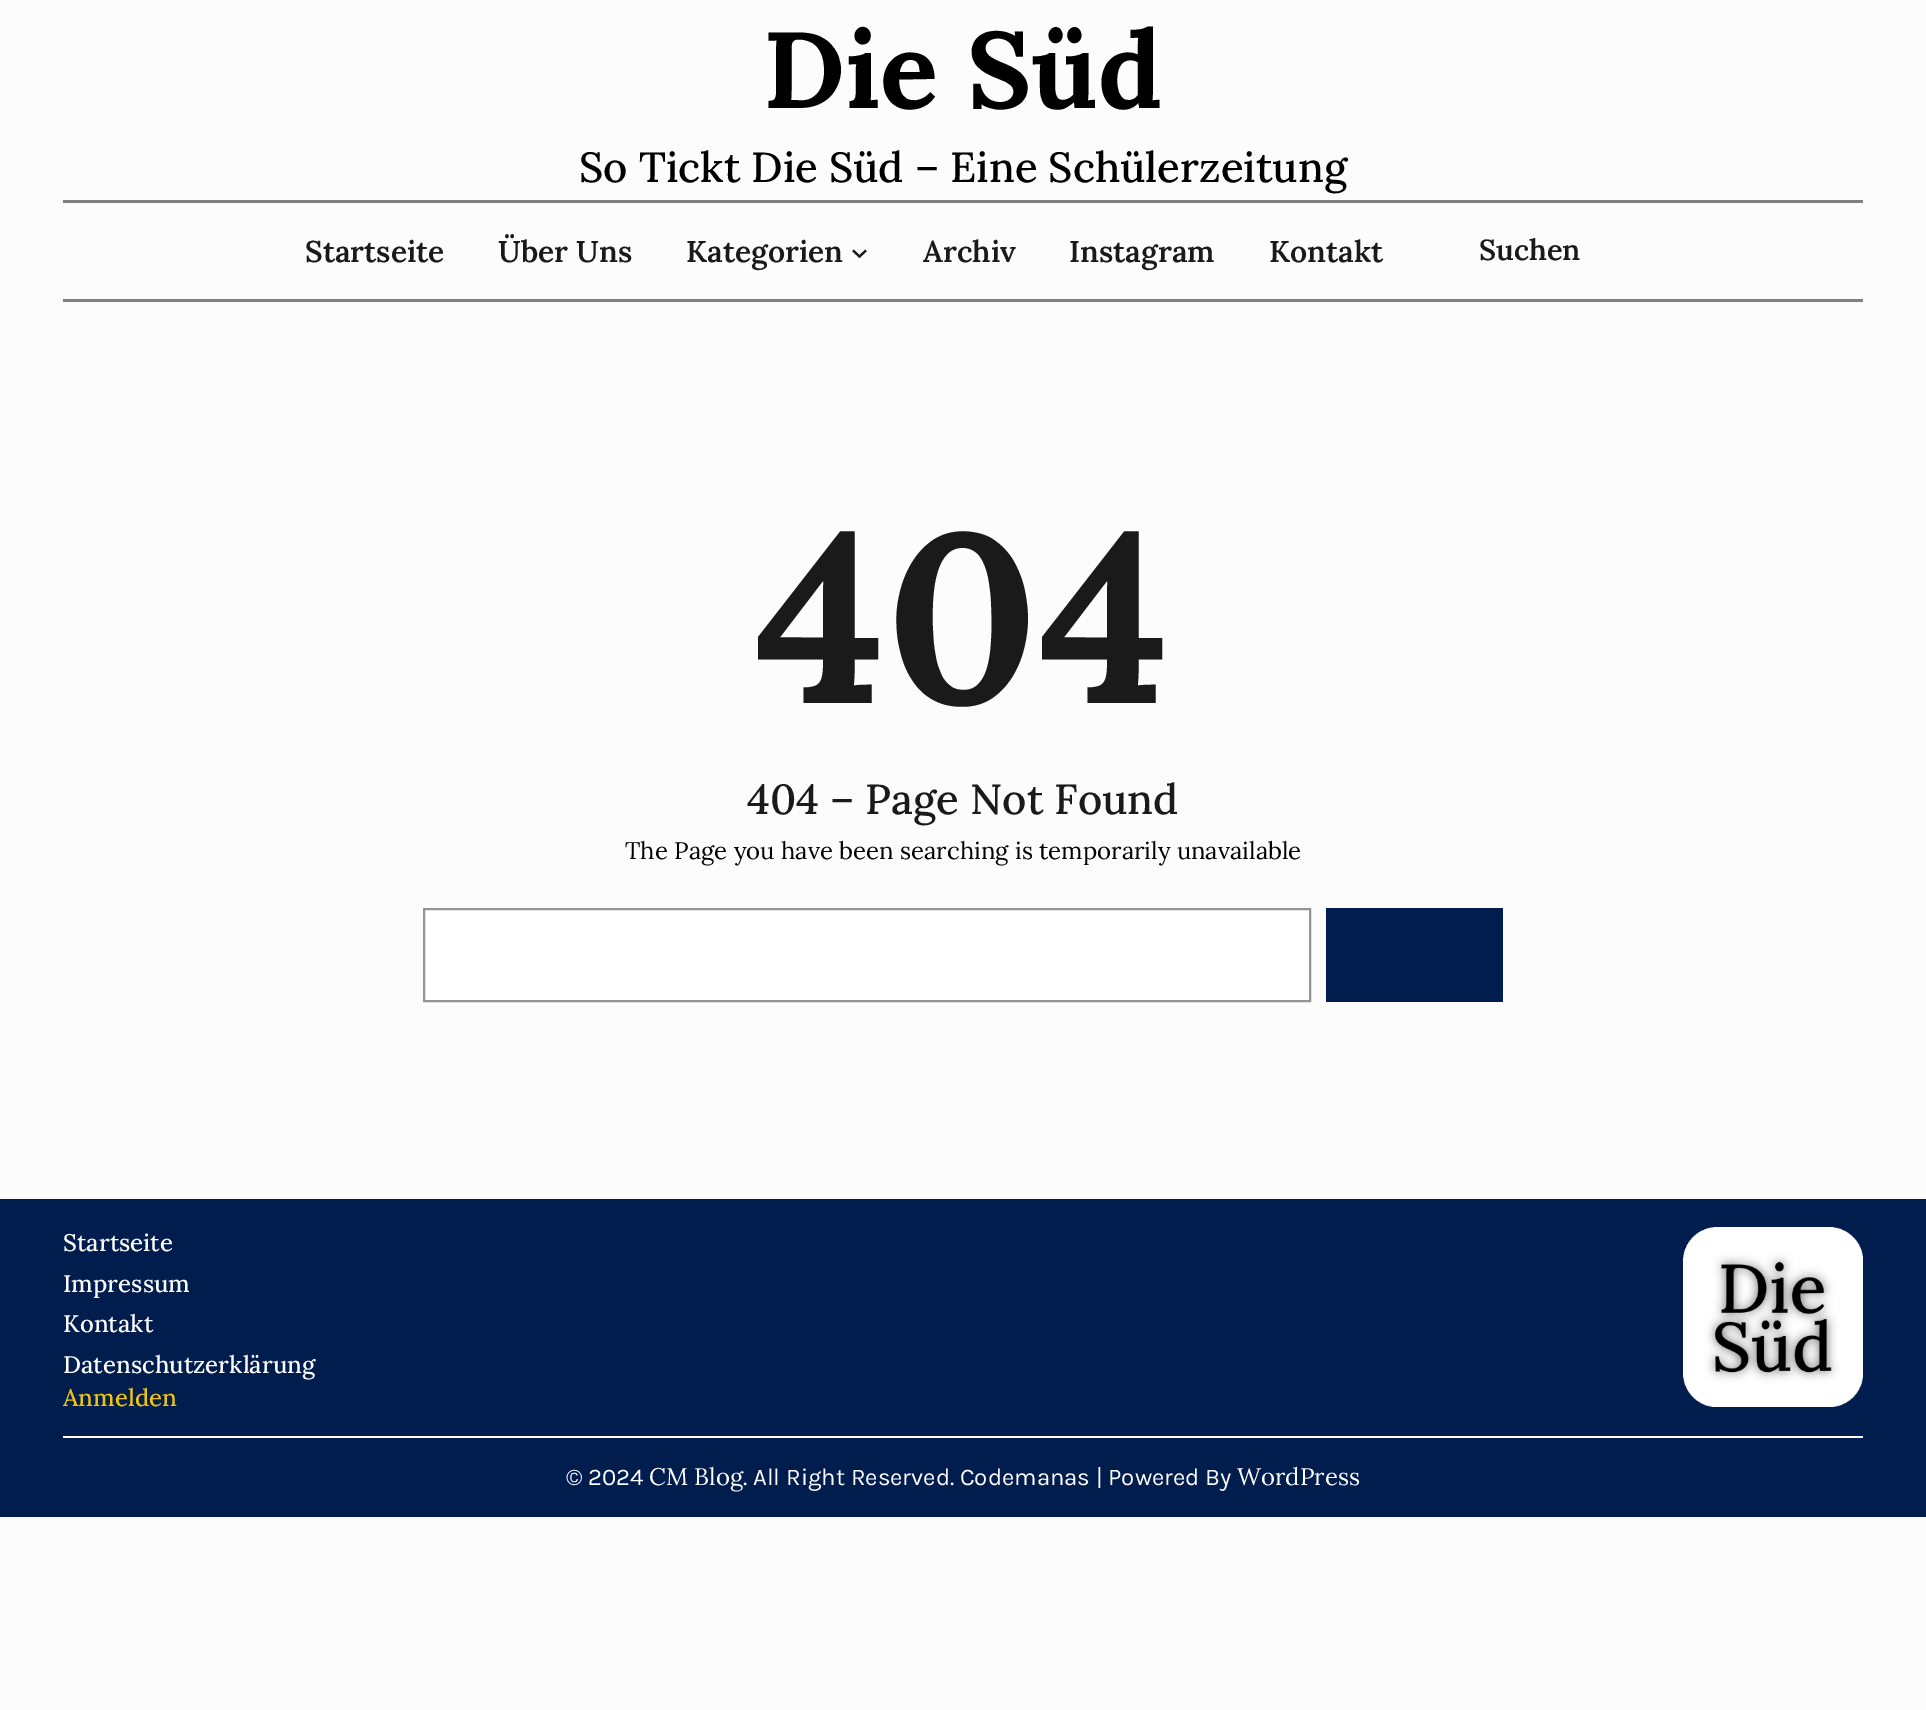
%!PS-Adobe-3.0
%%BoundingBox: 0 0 1926 1710
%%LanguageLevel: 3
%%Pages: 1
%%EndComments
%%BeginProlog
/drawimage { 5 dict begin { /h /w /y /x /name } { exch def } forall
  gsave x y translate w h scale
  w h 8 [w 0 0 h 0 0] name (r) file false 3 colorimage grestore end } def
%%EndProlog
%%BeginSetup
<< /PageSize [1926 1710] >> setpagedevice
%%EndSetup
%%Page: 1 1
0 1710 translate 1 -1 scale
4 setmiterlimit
0.988 setgray
0 0 1926 1710 rectfill
0.502 setgray
63 200 1800 3 rectfill
0.102 setgray
2.2 setlinewidth
newpath 853 250.5 moveto 859.5 256.5 lineto 866 250.5 lineto stroke
0.502 setgray
63 299 1800 3 rectfill
1 setgray
newpath 424 909 moveto 1310 909 lineto 1310 1001 lineto 424 1001 lineto closepath gsave fill grestore
0.58 setgray
2 setlinewidth
stroke
0 0.114 0.306 setrgbcolor
1326 908 177 94 rectfill
0 1199 1926 318 rectfill
0.992 setgray
63 1436 1800 2 rectfill
(images/1.raw) 1683 1227 180 180 drawimage
/Lora-Bold [108 0 0 -108 0 0] selectfont
0 setgray
763 108 moveto (Die Süd) show
/Lora-Medium [42 0 0 -42 0 0] selectfont
579 182 moveto (So Tickt Die Süd – Eine Schülerzeitung) show
/Lora-SemiBold [30 0 0 -30 0 0] selectfont
0.102 setgray
305 262 moveto (Startseite) show
498 262 moveto (Über Uns) show
686 262 moveto (Kategorien) show
923 262 moveto (Archiv) show
1069 262 moveto (Instagram) show
1269 262 moveto (Kontakt) show
/Lora-SemiBold [29 0 0 -29 0 0] selectfont
1479 260 moveto (Suchen) show
/Lora-Bold [240 0 0 -240 0 0] selectfont
755 703 moveto (404) show
/Lora-Medium [42 0 0 -42 0 0] selectfont
747 814 moveto (404 – Page Not Found) show
/Lora-Regular [24 0 0 -24 0 0] selectfont
0 setgray
625 859 moveto (The Page you have been searching is temporarily unavailable) show
/Lora-Medium [24 0 0 -24 0 0] selectfont
0.992 setgray
63 1251 moveto (Startseite) show
63 1292 moveto (Impressum) show
63 1332 moveto (Kontakt) show
63 1373 moveto (Datenschutzerklärung) show
0.925 0.769 0.067 setrgbcolor
63 1406 moveto (Anmelden) show
/Karla-Regular [24 0 0 -24 0 0] selectfont
0.992 setgray
566 1485 moveto (© 2024) show
/Lora-Regular [24 0 0 -24 0 0] selectfont
649 1485 moveto (CM Blog) show
/Karla-Regular [24 0 0 -24 0 0] selectfont
743 1485 moveto (. All Right Reserved. Codemanas | Powered By) show
/Lora-Regular [24 0 0 -24 0 0] selectfont
1237 1485 moveto (WordPress) show
showpage
%%EOF
